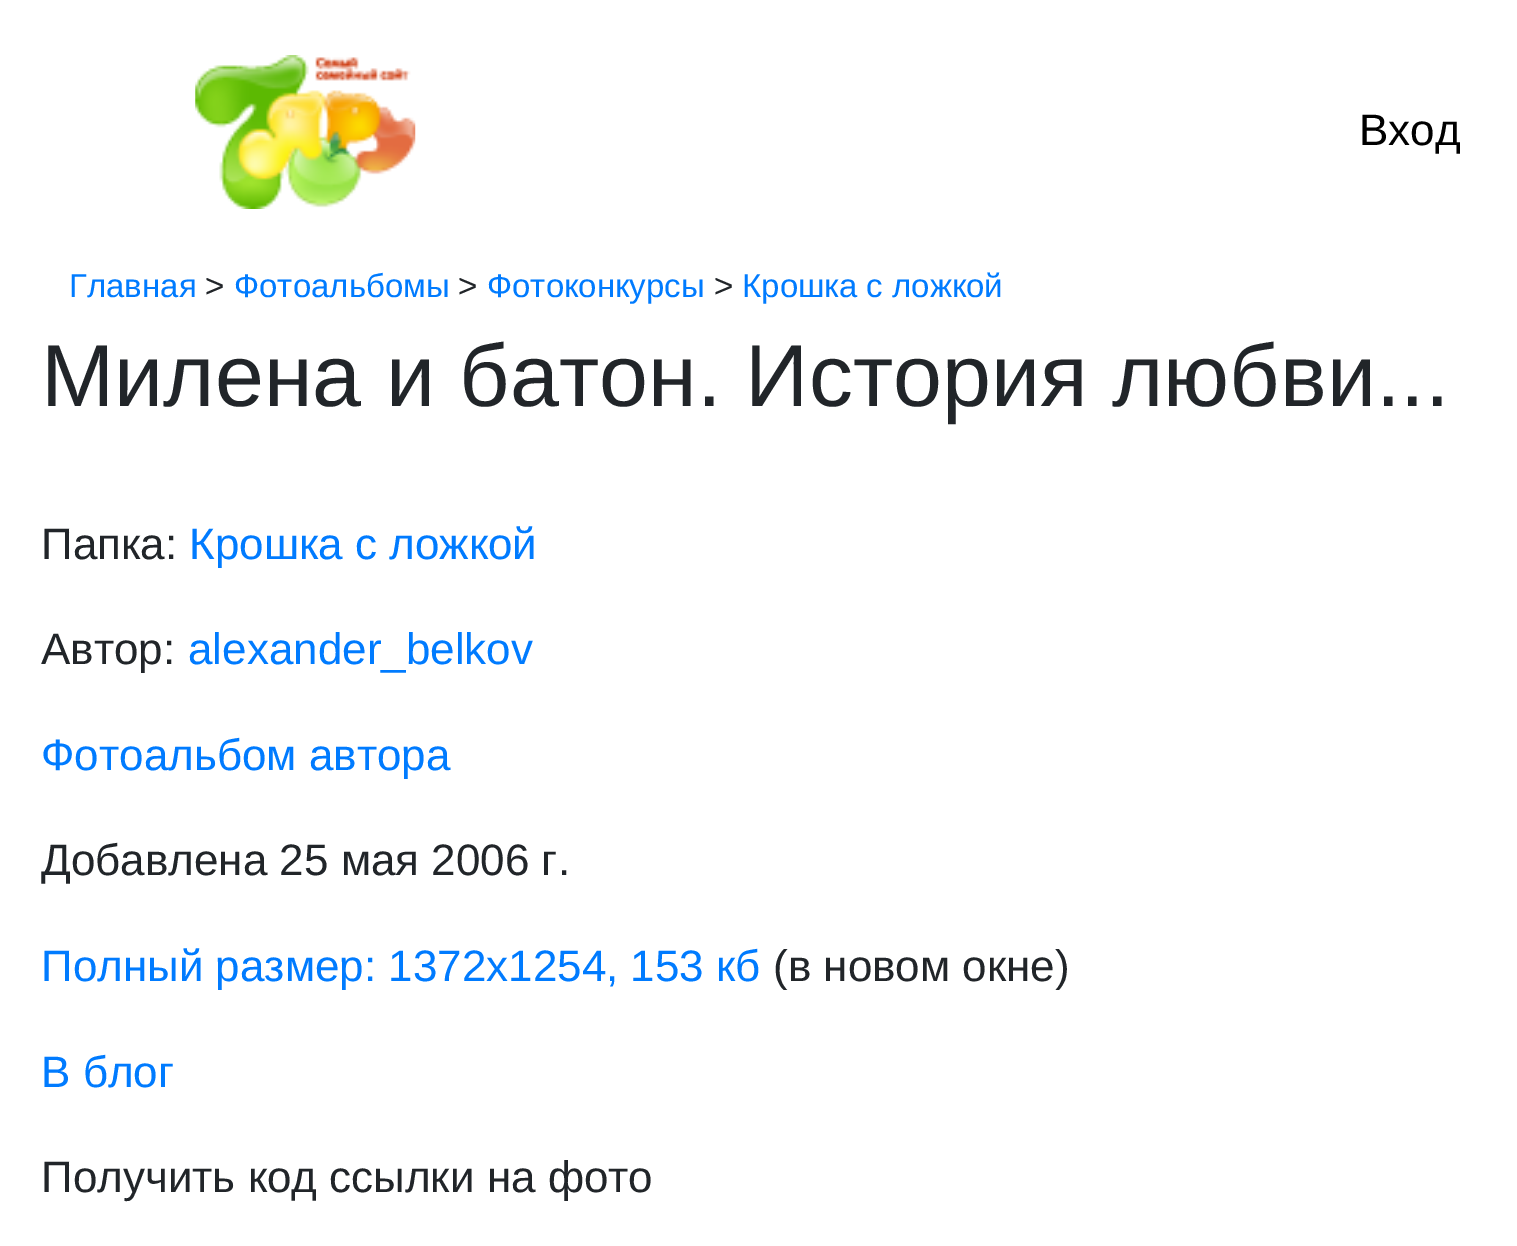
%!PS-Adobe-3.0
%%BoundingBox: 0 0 1517 1246
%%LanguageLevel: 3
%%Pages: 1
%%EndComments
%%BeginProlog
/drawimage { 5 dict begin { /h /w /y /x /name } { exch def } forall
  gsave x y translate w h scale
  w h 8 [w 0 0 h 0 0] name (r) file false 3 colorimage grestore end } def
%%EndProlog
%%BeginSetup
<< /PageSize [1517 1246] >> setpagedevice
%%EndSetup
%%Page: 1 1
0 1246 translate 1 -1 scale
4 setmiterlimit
1 setgray
0 0 1517 1246 rectfill
(images/1.raw) 195 55 221 154 drawimage
/LiberationSans-Regular [44 0 0 -44 0 0] selectfont
0 setgray
1359 145 moveto (Вход) show
/LiberationSans-Regular [33 0 0 -33 0 0] selectfont
0 0.482 1 setrgbcolor
69 297 moveto (Главная) show
0.129 0.145 0.161 setrgbcolor
205 297 moveto (>) show
0 0.482 1 setrgbcolor
234 297 moveto (Фотоальбомы) show
0.129 0.145 0.161 setrgbcolor
458 297 moveto (>) show
0 0.482 1 setrgbcolor
487 297 moveto (Фотоконкурсы) show
0.129 0.145 0.161 setrgbcolor
714 297 moveto (>) show
0 0.482 1 setrgbcolor
742 297 moveto (Крошка с ложкой) show
/LiberationSans-Regular [88 0 0 -88 0 0] selectfont
0.129 0.145 0.161 setrgbcolor
41 406 moveto (Милена и батон. История любви...) show
/LiberationSans-Regular [44 0 0 -44 0 0] selectfont
41 559 moveto (Папка:) show
0 0.482 1 setrgbcolor
189 559 moveto (Крошка с ложкой) show
0.129 0.145 0.161 setrgbcolor
41 664 moveto (Автор:) show
0 0.482 1 setrgbcolor
188 664 moveto (alexander_belkov) show
41 770 moveto (Фотоальбом автора) show
0.129 0.145 0.161 setrgbcolor
41 875 moveto (Добавлена 25 мая 2006 г.) show
0 0.482 1 setrgbcolor
41 981 moveto (Полный размер: 1372х1254, 153 кб) show
0.129 0.145 0.161 setrgbcolor
773 981 moveto (\(в новом окне\)) show
0 0.482 1 setrgbcolor
41 1087 moveto (В блог) show
0.129 0.145 0.161 setrgbcolor
41 1192 moveto (Получить код ссылки на фото) show
showpage
%%EOF
